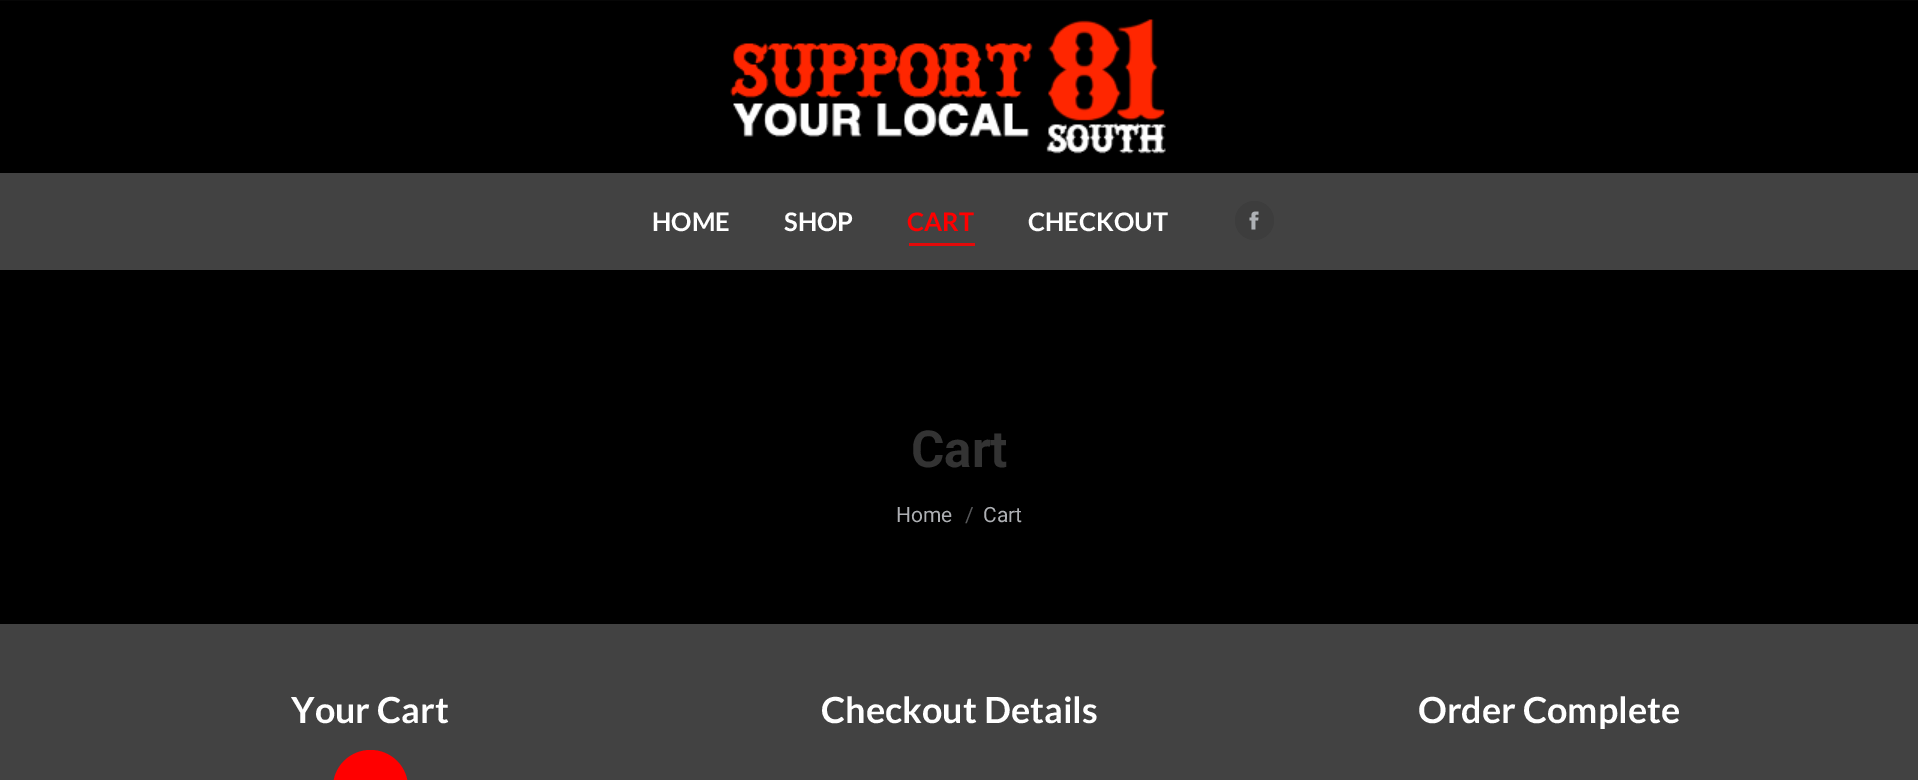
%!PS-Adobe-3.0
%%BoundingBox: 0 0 1918 780
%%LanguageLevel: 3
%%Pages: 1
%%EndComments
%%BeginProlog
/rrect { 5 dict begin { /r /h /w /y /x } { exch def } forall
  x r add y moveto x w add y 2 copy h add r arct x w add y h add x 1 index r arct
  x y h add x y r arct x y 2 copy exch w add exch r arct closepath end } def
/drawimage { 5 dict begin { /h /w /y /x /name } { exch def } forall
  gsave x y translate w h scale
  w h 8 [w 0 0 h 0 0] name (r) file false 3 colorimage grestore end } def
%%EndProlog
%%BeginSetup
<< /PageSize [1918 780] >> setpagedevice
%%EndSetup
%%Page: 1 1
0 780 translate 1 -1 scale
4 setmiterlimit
0 setgray
0 0 1918 780 rectfill
0.024 setgray
0 0 1918 1 rectfill
(images/1.raw) 730 19 436 135 drawimage
0.259 setgray
0 173 1918 97 rectfill
0.89 0.039 0.039 setrgbcolor
909 243 66 3 rectfill
0.239 setgray
newpath 1254.5 220.5 19.5 0 360 arc closepath fill
(images/2.raw) 1249 211 10 19 drawimage
0.259 setgray
0 624 1918 156 rectfill
1 0 0 setrgbcolor
333 750 75 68 37.5 rrect fill
/Lato-Bold [25.5 0 0 -25.5 0 0] selectfont
1 setgray
652 231 moveto (HOME) show
784 231 moveto (SHOP) show
1 0 0 setrgbcolor
907 231 moveto (CART) show
1 setgray
1028 231 moveto (CHECKOUT) show
/Roboto-Bold [51 0 0 -51 0 0] selectfont
0.2 setgray
911 467 moveto (Cart) show
/Roboto-Regular [21 0 0 -21 0 0] selectfont
0.678 0.686 0.702 setrgbcolor
896 522 moveto (Home) show
0.341 0.345 0.353 setrgbcolor
965 522 moveto (/) show
0.678 0.686 0.702 setrgbcolor
983 522 moveto (Cart) show
/Lato-Bold [36 0 0 -36 0 0] selectfont
1 setgray
291 723 moveto (Your Cart) show
821 723 moveto (Checkout Details) show
1418 723 moveto (Order Complete) show
showpage
%%EOF
